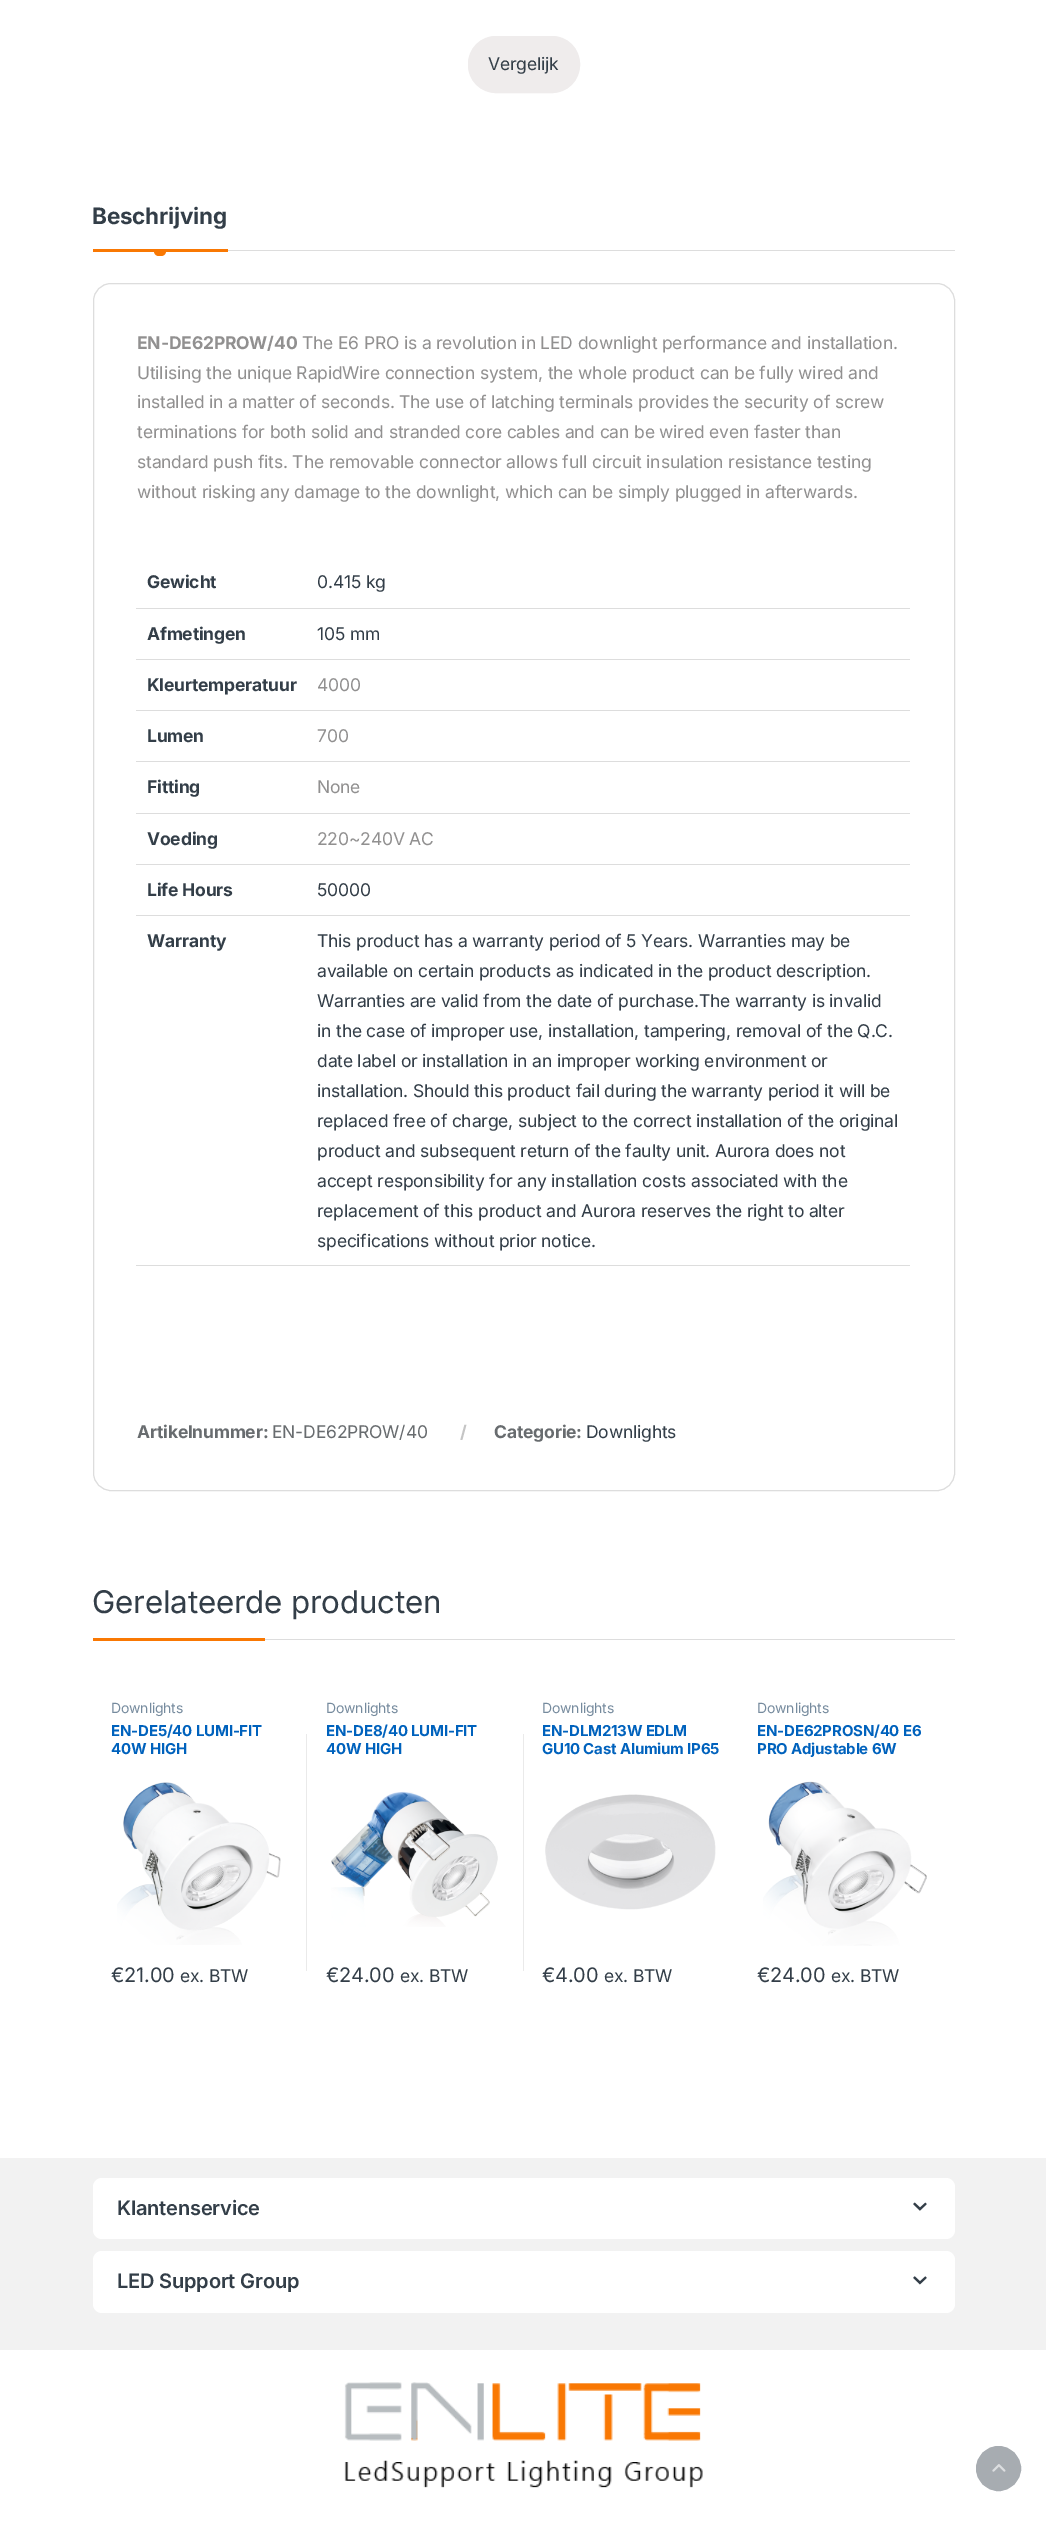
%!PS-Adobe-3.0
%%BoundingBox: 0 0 1046 2546
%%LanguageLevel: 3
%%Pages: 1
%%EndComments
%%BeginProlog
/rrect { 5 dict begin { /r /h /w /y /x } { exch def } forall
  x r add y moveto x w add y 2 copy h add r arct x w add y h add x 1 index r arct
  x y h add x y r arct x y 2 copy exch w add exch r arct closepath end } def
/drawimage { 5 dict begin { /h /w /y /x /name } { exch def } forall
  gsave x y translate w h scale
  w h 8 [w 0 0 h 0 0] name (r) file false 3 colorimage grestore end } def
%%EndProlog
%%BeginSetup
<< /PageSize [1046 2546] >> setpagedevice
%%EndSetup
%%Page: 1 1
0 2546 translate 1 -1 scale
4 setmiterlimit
1 setgray
0 0 1046 2546 rectfill
0.937 0.925 0.925 setrgbcolor
468.5 36.5 111 56 27.5 rrect gsave fill grestore
stroke
0.976 0.471 0.012 setrgbcolor
newpath 154 251 moveto 166 251 lineto 166 254 164 256 161 256 curveto 159 256 lineto 156 256 154 254 154 251 curveto closepath fill
93 249 135 3 rectfill
0.867 setgray
228 250 727 1 rectfill
93.5 283.5 861 1207 17.5 rrect stroke
136 608 774 1 rectfill
136 659 774 1 rectfill
136 710 774 1 rectfill
136 761 774 1 rectfill
136 813 774 1 rectfill
136 864 774 1 rectfill
136 915 774 1 rectfill
136 1265 774 1 rectfill
265 1639 690 1 rectfill
0.976 0.471 0.012 setrgbcolor
93 1638 172 3 rectfill
(images/1.raw) 117 1782 164 163 drawimage
0.918 setgray
306 1734 1 237 rectfill
(images/2.raw) 331 1791 167 136 drawimage
523 1734 1 237 rectfill
(images/3.raw) 545 1794 171 116 drawimage
(images/4.raw) 763 1781 164 165 drawimage
0.949 setgray
0 2158 1046 192 rectfill
1 setgray
93 2178 862 61 9 rrect fill
(images/5.raw) 913 2202 14 9 drawimage
93 2251 862 62 9 rrect fill
(images/6.raw) 913 2276 14 9 drawimage
(images/7.raw) 344 2382 359 106 drawimage
0.655 0.675 0.694 setrgbcolor
newpath 998.5 2468.5 22 0 360 arc closepath gsave fill grestore
stroke
(images/8.raw) 992 2464 14 8 drawimage
/Inter-Regular [17.5 0 0 -17.5 0 0] selectfont
0.2 0.243 0.282 setrgbcolor
488 70 moveto -0.18 0 (Vergelijk) ashow
/Inter-Bold [22.5 0 0 -22.5 0 0] selectfont
92 224 moveto -0.18 0 (Beschrijving) ashow
/Inter-Bold [17.5 0 0 -17.5 0 0] selectfont
0.569 0.565 0.565 setrgbcolor
137 349 moveto -0.18 0 (EN-DE62PROW/40) ashow
/Inter-Regular [17.5 0 0 -17.5 0 0] selectfont
302 349 moveto -0.18 0 (The E6 PRO is a revolution in LED downlight performance and installation.) ashow
137 379 moveto -0.18 0 (Utilising the unique RapidWire connection system, the whole product can be fully wired and) ashow
137 408 moveto -0.18 0 (installed in a matter of seconds. The use of latching terminals provides the security of screw) ashow
137 438 moveto -0.18 0 (terminations for both solid and stranded core cables and can be wired even faster than) ashow
137 468 moveto -0.18 0 (standard push fits. The removable connector allows full circuit insulation resistance testing) ashow
137 498 moveto -0.18 0 (without risking any damage to the downlight, which can be simply plugged in afterwards.) ashow
/Inter-Bold [17.5 0 0 -17.5 0 0] selectfont
0.2 0.243 0.282 setrgbcolor
147 588 moveto -0.18 0 (Gewicht) ashow
/Inter-Regular [17.5 0 0 -17.5 0 0] selectfont
317 588 moveto -0.18 0 (0.415 kg) ashow
/Inter-Bold [17.5 0 0 -17.5 0 0] selectfont
147 640 moveto -0.18 0 (Afmetingen) ashow
/Inter-Regular [17.5 0 0 -17.5 0 0] selectfont
317 640 moveto -0.18 0 (105 mm) ashow
/Inter-Bold [17.5 0 0 -17.5 0 0] selectfont
147 691 moveto -0.18 0 (Kleurtemperatuur) ashow
/Inter-Regular [17.5 0 0 -17.5 0 0] selectfont
0.569 0.565 0.565 setrgbcolor
317 691 moveto -0.18 0 (4000) ashow
/Inter-Bold [17.5 0 0 -17.5 0 0] selectfont
0.2 0.243 0.282 setrgbcolor
147 742 moveto -0.18 0 (Lumen) ashow
/Inter-Regular [17.5 0 0 -17.5 0 0] selectfont
0.569 0.565 0.565 setrgbcolor
317 742 moveto -0.18 0 (700) ashow
/Inter-Bold [17.5 0 0 -17.5 0 0] selectfont
0.2 0.243 0.282 setrgbcolor
147 793 moveto -0.18 0 (Fitting) ashow
/Inter-Regular [17.5 0 0 -17.5 0 0] selectfont
0.569 0.565 0.565 setrgbcolor
317 793 moveto -0.18 0 (None) ashow
/Inter-Bold [17.5 0 0 -17.5 0 0] selectfont
0.2 0.243 0.282 setrgbcolor
147 845 moveto -0.18 0 (Voeding) ashow
/Inter-Regular [17.5 0 0 -17.5 0 0] selectfont
0.569 0.565 0.565 setrgbcolor
317 845 moveto -0.18 0 (220~240V AC) ashow
/Inter-Bold [17.5 0 0 -17.5 0 0] selectfont
0.2 0.243 0.282 setrgbcolor
147 896 moveto -0.18 0 (Life Hours) ashow
/Inter-Regular [17.5 0 0 -17.5 0 0] selectfont
317 896 moveto -0.18 0 (50000) ashow
/Inter-Bold [17.5 0 0 -17.5 0 0] selectfont
147 947 moveto -0.18 0 (Warranty) ashow
/Inter-Regular [17.5 0 0 -17.5 0 0] selectfont
317 947 moveto -0.18 0 (This product has a warranty period of 5 Years. Warranties may be) ashow
317 977 moveto -0.18 0 (available on certain products as indicated in the product description.) ashow
317 1007 moveto -0.18 0 (Warranties are valid from the date of purchase.The warranty is invalid) ashow
317 1037 moveto -0.18 0 (in the case of improper use, installation, tampering, removal of the Q.C.) ashow
317 1067 moveto -0.18 0 (date label or installation in an improper working environment or) ashow
317 1097 moveto -0.18 0 (installation. Should this product fail during the warranty period it will be) ashow
317 1127 moveto -0.18 0 (replaced free of charge, subject to the correct installation of the original) ashow
317 1157 moveto -0.18 0 (product and subsequent return of the faulty unit. Aurora does not) ashow
317 1187 moveto -0.18 0 (accept responsibility for any installation costs associated with the) ashow
317 1217 moveto -0.18 0 (replacement of this product and Aurora reserves the right to alter) ashow
317 1247 moveto -0.18 0 (specifications without prior notice.) ashow
/Inter-Bold [17.5 0 0 -17.5 0 0] selectfont
0.408 0.424 0.435 setrgbcolor
137 1438 moveto -0.18 0 (Artikelnummer:) ashow
/Inter-Regular [17.5 0 0 -17.5 0 0] selectfont
272 1438 moveto -0.18 0 (EN-DE62PROW/40) ashow
/Inter-Bold [17.5 0 0 -17.5 0 0] selectfont
0.773 setgray
460 1438 moveto -0.18 0 (/) ashow
0.408 0.424 0.435 setrgbcolor
494 1438 moveto -0.18 0 (Categorie:) ashow
/Inter-Regular [17.5 0 0 -17.5 0 0] selectfont
0.2 0.243 0.282 setrgbcolor
586 1438 moveto -0.18 0 (Downlights) ashow
/Inter-Regular [31.25 0 0 -31.25 0 0] selectfont
92 1613 moveto -0.18 0 (Gerelateerde producten) ashow
/Inter-Regular [14 0 0 -14 0 0] selectfont
0.463 0.545 0.62 setrgbcolor
111 1713 moveto -0.18 0 (Downlights) ashow
/Inter-Bold [15 0 0 -15 0 0] selectfont
0 0.384 0.741 setrgbcolor
111 1736 moveto -0.18 0 (EN-DE5/40 LUMI-FIT) ashow
111 1754 moveto -0.18 0 (40W HIGH) ashow
/Inter-Regular [20 0 0 -20 0 0] selectfont
0.2 0.243 0.282 setrgbcolor
111 1982 moveto -0.18 0 (€21.00) ashow
/Inter-Regular [17.5 0 0 -17.5 0 0] selectfont
180 1982 moveto -0.18 0 (ex. BTW) ashow
/Inter-Regular [14 0 0 -14 0 0] selectfont
0.463 0.545 0.62 setrgbcolor
326 1713 moveto -0.18 0 (Downlights) ashow
/Inter-Bold [15 0 0 -15 0 0] selectfont
0 0.384 0.741 setrgbcolor
326 1736 moveto -0.18 0 (EN-DE8/40 LUMI-FIT) ashow
326 1754 moveto -0.18 0 (40W HIGH) ashow
/Inter-Regular [20 0 0 -20 0 0] selectfont
0.2 0.243 0.282 setrgbcolor
326 1982 moveto -0.18 0 (€24.00) ashow
/Inter-Regular [17.5 0 0 -17.5 0 0] selectfont
400 1982 moveto -0.18 0 (ex. BTW) ashow
/Inter-Regular [14 0 0 -14 0 0] selectfont
0.463 0.545 0.62 setrgbcolor
542 1713 moveto -0.18 0 (Downlights) ashow
/Inter-Bold [15 0 0 -15 0 0] selectfont
0 0.384 0.741 setrgbcolor
542 1736 moveto -0.18 0 (EN-DLM213W EDLM) ashow
542 1754 moveto -0.18 0 (GU10 Cast Alumium IP65) ashow
/Inter-Regular [20 0 0 -20 0 0] selectfont
0.2 0.243 0.282 setrgbcolor
542 1982 moveto -0.18 0 (€4.00) ashow
/Inter-Regular [17.5 0 0 -17.5 0 0] selectfont
604 1982 moveto -0.18 0 (ex. BTW) ashow
/Inter-Regular [14 0 0 -14 0 0] selectfont
0.463 0.545 0.62 setrgbcolor
757 1713 moveto -0.18 0 (Downlights) ashow
/Inter-Bold [15 0 0 -15 0 0] selectfont
0 0.384 0.741 setrgbcolor
757 1736 moveto -0.18 0 (EN-DE62PROSN/40 E6) ashow
757 1754 moveto -0.18 0 (PRO Adjustable 6W) ashow
/Inter-Regular [20 0 0 -20 0 0] selectfont
0.2 0.243 0.282 setrgbcolor
757 1982 moveto -0.18 0 (€24.00) ashow
/Inter-Regular [17.5 0 0 -17.5 0 0] selectfont
831 1982 moveto -0.18 0 (ex. BTW) ashow
/Inter-SemiBold [20 0 0 -20 0 0] selectfont
117 2215 moveto -0.18 0 (Klantenservice) ashow
117 2288 moveto -0.18 0 (LED Support Group) ashow
showpage
%%EOF
